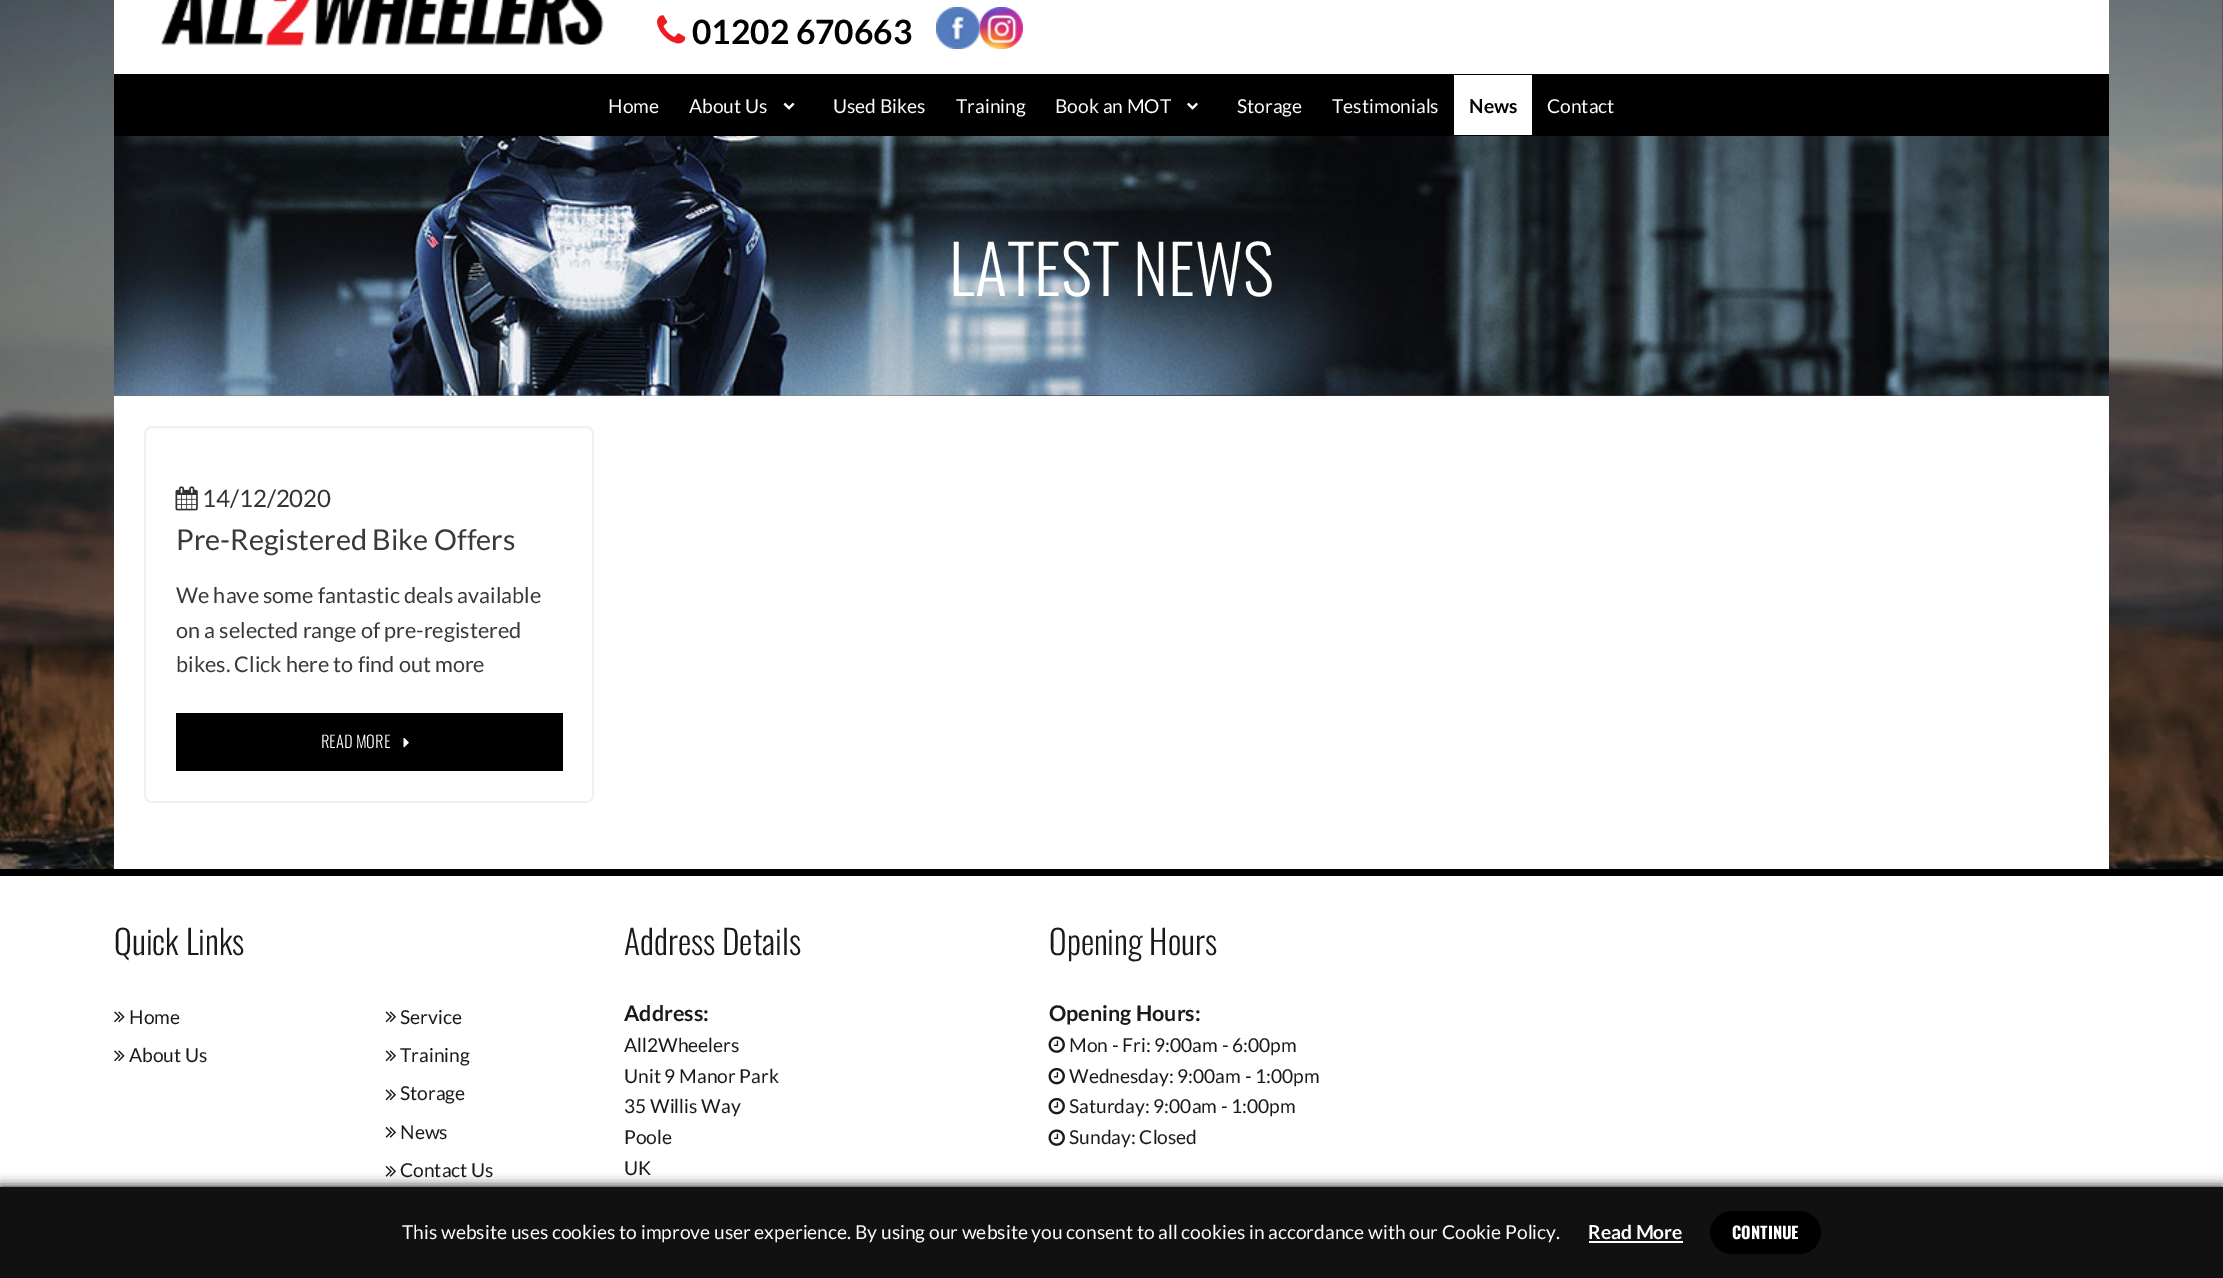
%!PS-Adobe-3.0
%%BoundingBox: 0 0 2223 1278
%%LanguageLevel: 3
%%Pages: 1
%%EndComments
%%BeginProlog
/setalpha { dup .setfillconstantalpha .setstrokeconstantalpha } def
/rrect { 5 dict begin { /r /h /w /y /x } { exch def } forall
  x r add y moveto x w add y 2 copy h add r arct x w add y h add x 1 index r arct
  x y h add x y r arct x y 2 copy exch w add exch r arct closepath end } def
/softshadow { 12 dict begin { /a /b /q /h /w /y /x } { exch def } forall gsave /was 0 def
  9 -2 -9 { dup b mul 4 div /e exch def 1 sub .425 mul 2.718 exch exp 1 add a .99 .min exch div /now exch def
    1 1 now sub 1 was sub div sub setalpha /was now def
    w h .min e 2 mul add 0 gt { x e sub y e sub w e 2 mul add h e 2 mul add
      q e add b .6 mul add w h .min 2 div e add .min 0 .max rrect fill } if } for grestore end } def
/drawimage { 5 dict begin { /h /w /y /x /name } { exch def } forall
  gsave x y translate w h scale
  w h 8 [w 0 0 h 0 0] name (r) file false 3 colorimage grestore end } def
%%EndProlog
%%BeginSetup
<< /PageSize [2223 1278] /PageUsesTransparency true >> setpagedevice
%%EndSetup
%%Page: 1 1
0 .pushpdf14devicefilter
0 1278 translate 1 -1 scale
4 setmiterlimit
0.122 setgray
0 0 2223 1278 rectfill
(images/1.raw) 0 0 2223 869 drawimage
1 setgray
114 0 1995 74 rectfill
(images/2.raw) 160 0 444 46 drawimage
(images/3.raw) 657 15 29 29 drawimage
(images/4.raw) 936 7 44 42 drawimage
(images/5.raw) 979 7 44 42 drawimage
0 setgray
114 74 1995 62 rectfill
(images/6.raw) 783 102 12 8 drawimage
(images/7.raw) 1187 102 11 8 drawimage
1 setgray
1454 75 78 60 rectfill
(images/8.raw) 114 136 1995 260 drawimage
114 396 1995 473 rectfill
0.945 setgray
2 setlinewidth
145 427 448 375 7 rrect stroke
(images/9.raw) 175 486 23 25 drawimage
0 setgray
176 713 387 58 rectfill
(images/10.raw) 403 738 6 10 drawimage
1 setgray
0 876 2223 311 rectfill
0 setgray
0 869 2223 7 rectfill
(images/11.raw) 114 1011 11 12 drawimage
(images/11.raw) 114 1050 11 12 drawimage
(images/12.raw) 385 1011 11 12 drawimage
(images/12.raw) 385 1050 11 12 drawimage
(images/12.raw) 385 1089 11 12 drawimage
(images/13.raw) 385 1127 11 11 drawimage
(images/13.raw) 385 1166 11 11 drawimage
(images/14.raw) 1048 1036 17 17 drawimage
(images/15.raw) 1048 1067 17 18 drawimage
(images/15.raw) 1048 1097 17 18 drawimage
(images/14.raw) 1048 1129 17 17 drawimage
0 1187 2223 91 0 6 1 softshadow
0.067 setgray
0 1187 2223 91 rectfill
1 setgray
1589 1241 94 2 rectfill
0 setgray
1711 1212 109 41 20.5 rrect gsave fill grestore
stroke
/Lato-Bold [33.5 0 0 -33.5 0 0] selectfont
692 44 moveto (01202 670663) show
/Lato-Regular [19.2 0 0 -19.2 0 0] selectfont
1 setgray
608 113 moveto (Home) show
689 113 moveto (About Us) show
833 113 moveto (Used Bikes) show
956 113 moveto (Training) show
1055 113 moveto (Book an MOT) show
1237 113 moveto (Storage) show
1332 113 moveto (Testimonials) show
/Lato-Bold [19.2 0 0 -19.2 0 0] selectfont
0 setgray
1469 113 moveto (News) show
/Lato-Regular [19.2 0 0 -19.2 0 0] selectfont
1 setgray
1547 113 moveto (Contact) show
/Oswald-Light [67 0 0 -67 0 0] selectfont
949 296 moveto (LATEST NEWS) show
/Lato-Regular [24 0 0 -24 0 0] selectfont
0.2 setgray
202 507 moveto (14/12/2020) show
/Lato-Regular [28.75 0 0 -28.75 0 0] selectfont
0.224 setgray
176 550 moveto (Pre-Registered Bike Offers) show
/Lato-Regular [21.6 0 0 -21.6 0 0] selectfont
176 603 moveto (We have some fantastic deals available) show
176 638 moveto (on a selected range of pre-registered) show
176 672 moveto (bikes. Click here to find out more) show
/Oswald-Light [16.5 0 0 -16.5 0 0] selectfont
1 setgray
321 748 moveto (READ MORE) show
/Oswald-Light [33.5 0 0 -33.5 0 0] selectfont
0.102 setgray
114 955 moveto (Quick Links) show
/Lato-Regular [19.2 0 0 -19.2 0 0] selectfont
129 1024 moveto (Home) show
129 1062 moveto (About Us) show
400 1024 moveto (Service) show
400 1062 moveto (Training) show
400 1100 moveto (Storage) show
400 1139 moveto (News) show
400 1177 moveto (Contact Us) show
/Oswald-Light [33.5 0 0 -33.5 0 0] selectfont
624 955 moveto (Address Details) show
/Lato-Bold [21.6 0 0 -21.6 0 0] selectfont
624 1021 moveto (Address:) show
/Lato-Regular [19.2 0 0 -19.2 0 0] selectfont
624 1052 moveto (All2Wheelers) show
624 1083 moveto (Unit 9 Manor Park) show
624 1113 moveto (35 Willis Way) show
624 1144 moveto (Poole) show
624 1175 moveto (UK) show
/Oswald-Light [33.5 0 0 -33.5 0 0] selectfont
1049 955 moveto (Opening Hours) show
/Lato-Bold [21.6 0 0 -21.6 0 0] selectfont
1049 1021 moveto (Opening Hours:) show
/Lato-Regular [19.2 0 0 -19.2 0 0] selectfont
1069 1052 moveto (Mon - Fri: 9:00am - 6:00pm) show
1069 1083 moveto (Wednesday: 9:00am - 1:00pm) show
1069 1113 moveto (Saturday: 9:00am - 1:00pm) show
1069 1144 moveto (Sunday: Closed) show
1 setgray
402 1239 moveto (This website uses cookies to improve user experience. By using our website you consent to all cookies in accordance with our Cookie Policy.) show
/Lato-Bold [19.2 0 0 -19.2 0 0] selectfont
1588 1239 moveto (Read More) show
/Oswald-Bold [16.5 0 0 -16.5 0 0] selectfont
1732 1239 moveto (CONTINUE) show
.poppdf14devicefilter showpage
%%EOF
